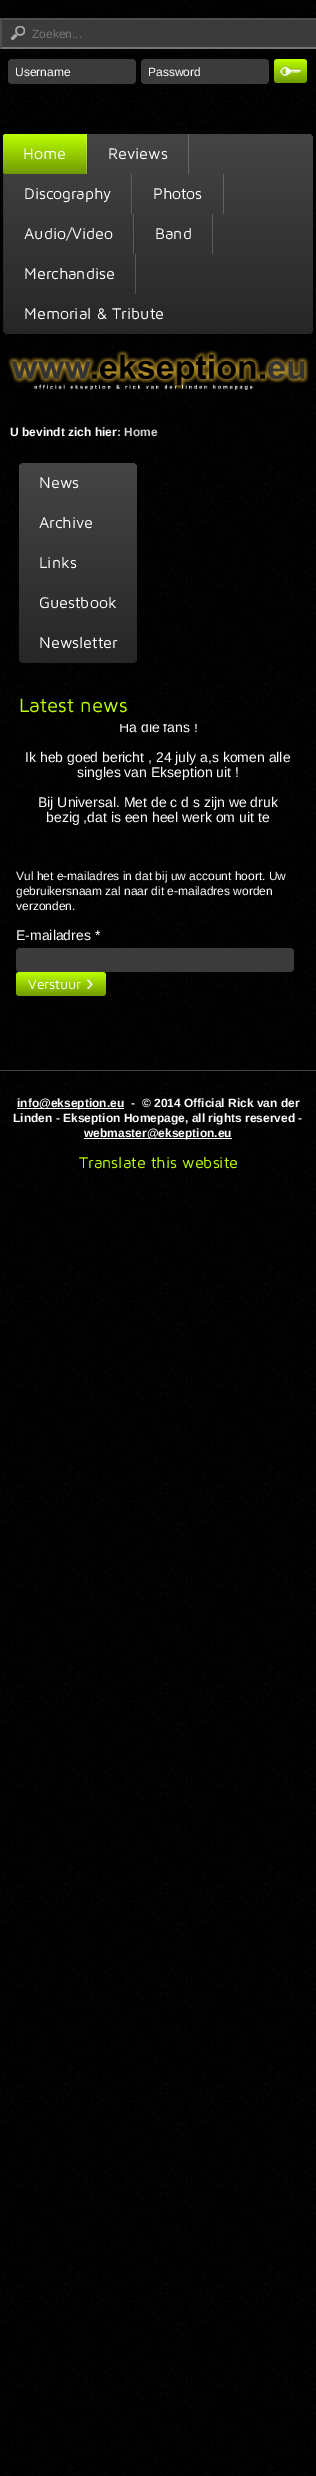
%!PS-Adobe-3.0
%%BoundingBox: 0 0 316 2476
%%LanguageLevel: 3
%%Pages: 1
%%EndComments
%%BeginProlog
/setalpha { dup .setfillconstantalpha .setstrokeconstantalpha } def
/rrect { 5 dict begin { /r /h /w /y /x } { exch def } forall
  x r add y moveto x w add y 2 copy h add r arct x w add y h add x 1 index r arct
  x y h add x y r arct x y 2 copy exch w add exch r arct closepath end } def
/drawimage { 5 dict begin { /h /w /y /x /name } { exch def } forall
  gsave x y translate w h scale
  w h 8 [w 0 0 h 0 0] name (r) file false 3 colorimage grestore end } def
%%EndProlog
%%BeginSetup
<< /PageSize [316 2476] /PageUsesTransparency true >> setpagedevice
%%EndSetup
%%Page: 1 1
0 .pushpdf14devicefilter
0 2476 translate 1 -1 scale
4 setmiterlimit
1 setgray
0 0 316 2476 rectfill
(images/1.raw) 0 0 316 2476 drawimage
0.231 setgray
0 18 316 31 rectfill
(images/2.raw) 11 26 14 14 drawimage
0.31 setgray
newpath 0 18 moveto 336 18 lineto 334 20 lineto 2 20 lineto closepath fill
0.463 setgray
newpath 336 49 moveto 0 49 lineto 2 47 lineto 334 47 lineto closepath fill
0.31 setgray
newpath 0 49 moveto 0 18 lineto 2 20 lineto 2 47 lineto closepath fill
0.231 setgray
8 59 128 25 4 rrect fill
141 59 128 25 4 rrect fill
(images/3.raw) 274 59 33 24 drawimage
gsave 3 134 310 200 5 rrect clip newpath
<< /ShadingType 2 /ColorSpace /DeviceRGB /Coords [158 134 158 334] /Extend [true true] /Function << /FunctionType 2 /Domain [0 1] /C0 [0.271 0.271 0.271] /C1 [0.149 0.149 0.149] /N 1 >> >> shfill grestore
gsave newpath 8 134 moveto 87 134 lineto 87 174 lineto 8 174 lineto 5 174 3 172 3 169 curveto 3 139 lineto 3 136 5 134 8 134 curveto closepath clip newpath
<< /ShadingType 2 /ColorSpace /DeviceRGB /Coords [45 134 45 174] /Extend [true true] /Function << /FunctionType 2 /Domain [0 1] /C0 [0.733 1 0] /C1 [0.439 0.6 0] /N 1 >> >> shfill grestore
0.2 setalpha
1 setgray
86 134 1 40 rectfill
188 134 1 40 rectfill
0.1 setalpha
0 setgray
87 134 1 40 rectfill
0.2 setalpha
1 setgray
131 174 1 40 rectfill
0.1 setalpha
0 setgray
3 174 1 40 rectfill
0.2 setalpha
1 setgray
223 174 1 40 rectfill
0.1 setalpha
0 setgray
132 174 1 40 rectfill
0.2 setalpha
1 setgray
133 214 1 40 rectfill
0.1 setalpha
0 setgray
3 214 1 40 rectfill
0.2 setalpha
1 setgray
212 214 1 40 rectfill
0.1 setalpha
0 setgray
134 214 1 40 rectfill
0.2 setalpha
1 setgray
135 254 1 40 rectfill
0.1 setalpha
0 setgray
3 254 1 40 rectfill
3 294 1 40 rectfill
1 setalpha
(images/4.raw) 8 350 301 40 drawimage
gsave 19 463 118 200 5 rrect clip newpath
<< /ShadingType 2 /ColorSpace /DeviceRGB /Coords [78 463 78 663] /Extend [true true] /Function << /FunctionType 2 /Domain [0 1] /C0 [0.271 0.271 0.271] /C1 [0.149 0.149 0.149] /N 1 >> >> shfill grestore
0.231 setgray
16 948 278 24 4 rrect fill
(images/5.raw) 16 972 90 24 drawimage
0.25 setalpha
1 setgray
0 1070 316 1 rectfill
1 setalpha
17 1108 107 1 rectfill
84 1138 148 1 rectfill
/LiberationSans-Regular [12 0 0 -12 0 0] selectfont
0.459 setgray
32 38 moveto (Zoeken...) show
1 setgray
15 76 moveto (Username) show
148 76 moveto (Password) show
/MavenPro-Regular [16 0 0 -16 0 0] selectfont
23 159 moveto (Home) show
108 159 moveto (Reviews) show
24 199 moveto (Discography) show
153 199 moveto (Photos) show
24 239 moveto (Audio/Video) show
155 239 moveto (Band) show
24 279 moveto (Merchandise) show
24 319 moveto (Memorial & Tribute) show
/LiberationSans-Bold [12 0 0 -12 0 0] selectfont
10 436 moveto (U bevindt zich hier:) show
0.8 setgray
124 436 moveto (Home) show
/MavenPro-Regular [16 0 0 -16 0 0] selectfont
1 setgray
39 488 moveto (News) show
39 528 moveto (Archive) show
39 568 moveto (Links) show
39 608 moveto (Guestbook) show
39 648 moveto (Newsletter) show
/MavenPro-Regular [20 0 0 -20 0 0] selectfont
0.733 1 0 setrgbcolor
19 712 moveto (Latest news) show
gsave
19 724 284 104 rectclip
/LiberationSans-Regular [14 0 0 -14 0 0] selectfont
1 setgray
119 732 moveto (Ha die fans !) show
grestore
/LiberationSans-Regular [14 0 0 -14 0 0] selectfont
1 setgray
25 762 moveto (Ik heb goed bericht , 24 july a,s komen alle) show
77 777 moveto (singles van Ekseption uit !) show
38 807 moveto (Bij Universal. Met de c d s zijn we druk) show
46 822 moveto (bezig ,dat is een heel werk om uit te) show
/LiberationSans-Regular [12 0 0 -12 0 0] selectfont
16 880 moveto (Vul het e-mailadres in dat bij uw account hoort. Uw) show
16 895 moveto (gebruikersnaam zal naar dit e-mailadres worden) show
16 910 moveto (verzonden.) show
/LiberationSans-Regular [14 0 0 -14 0 0] selectfont
16 940 moveto (E-mailadres *) show
/MavenPro-Regular [14 0 0 -14 0 0] selectfont
28 989 moveto (Verstuur) show
/LiberationSans-Bold [12 0 0 -12 0 0] selectfont
17 1107 moveto (info@ekseption.eu) show
131 1107 moveto (-  © 2014 Official Rick van der) show
13 1122 moveto (Linden - Ekseption Homepage, all rights reserved -) show
84 1137 moveto (webmaster@ekseption.eu) show
/MavenPro-Regular [16 0 0 -16 0 0] selectfont
0.733 1 0 setrgbcolor
79 1168 moveto (Translate this website) show
.poppdf14devicefilter showpage
%%EOF
